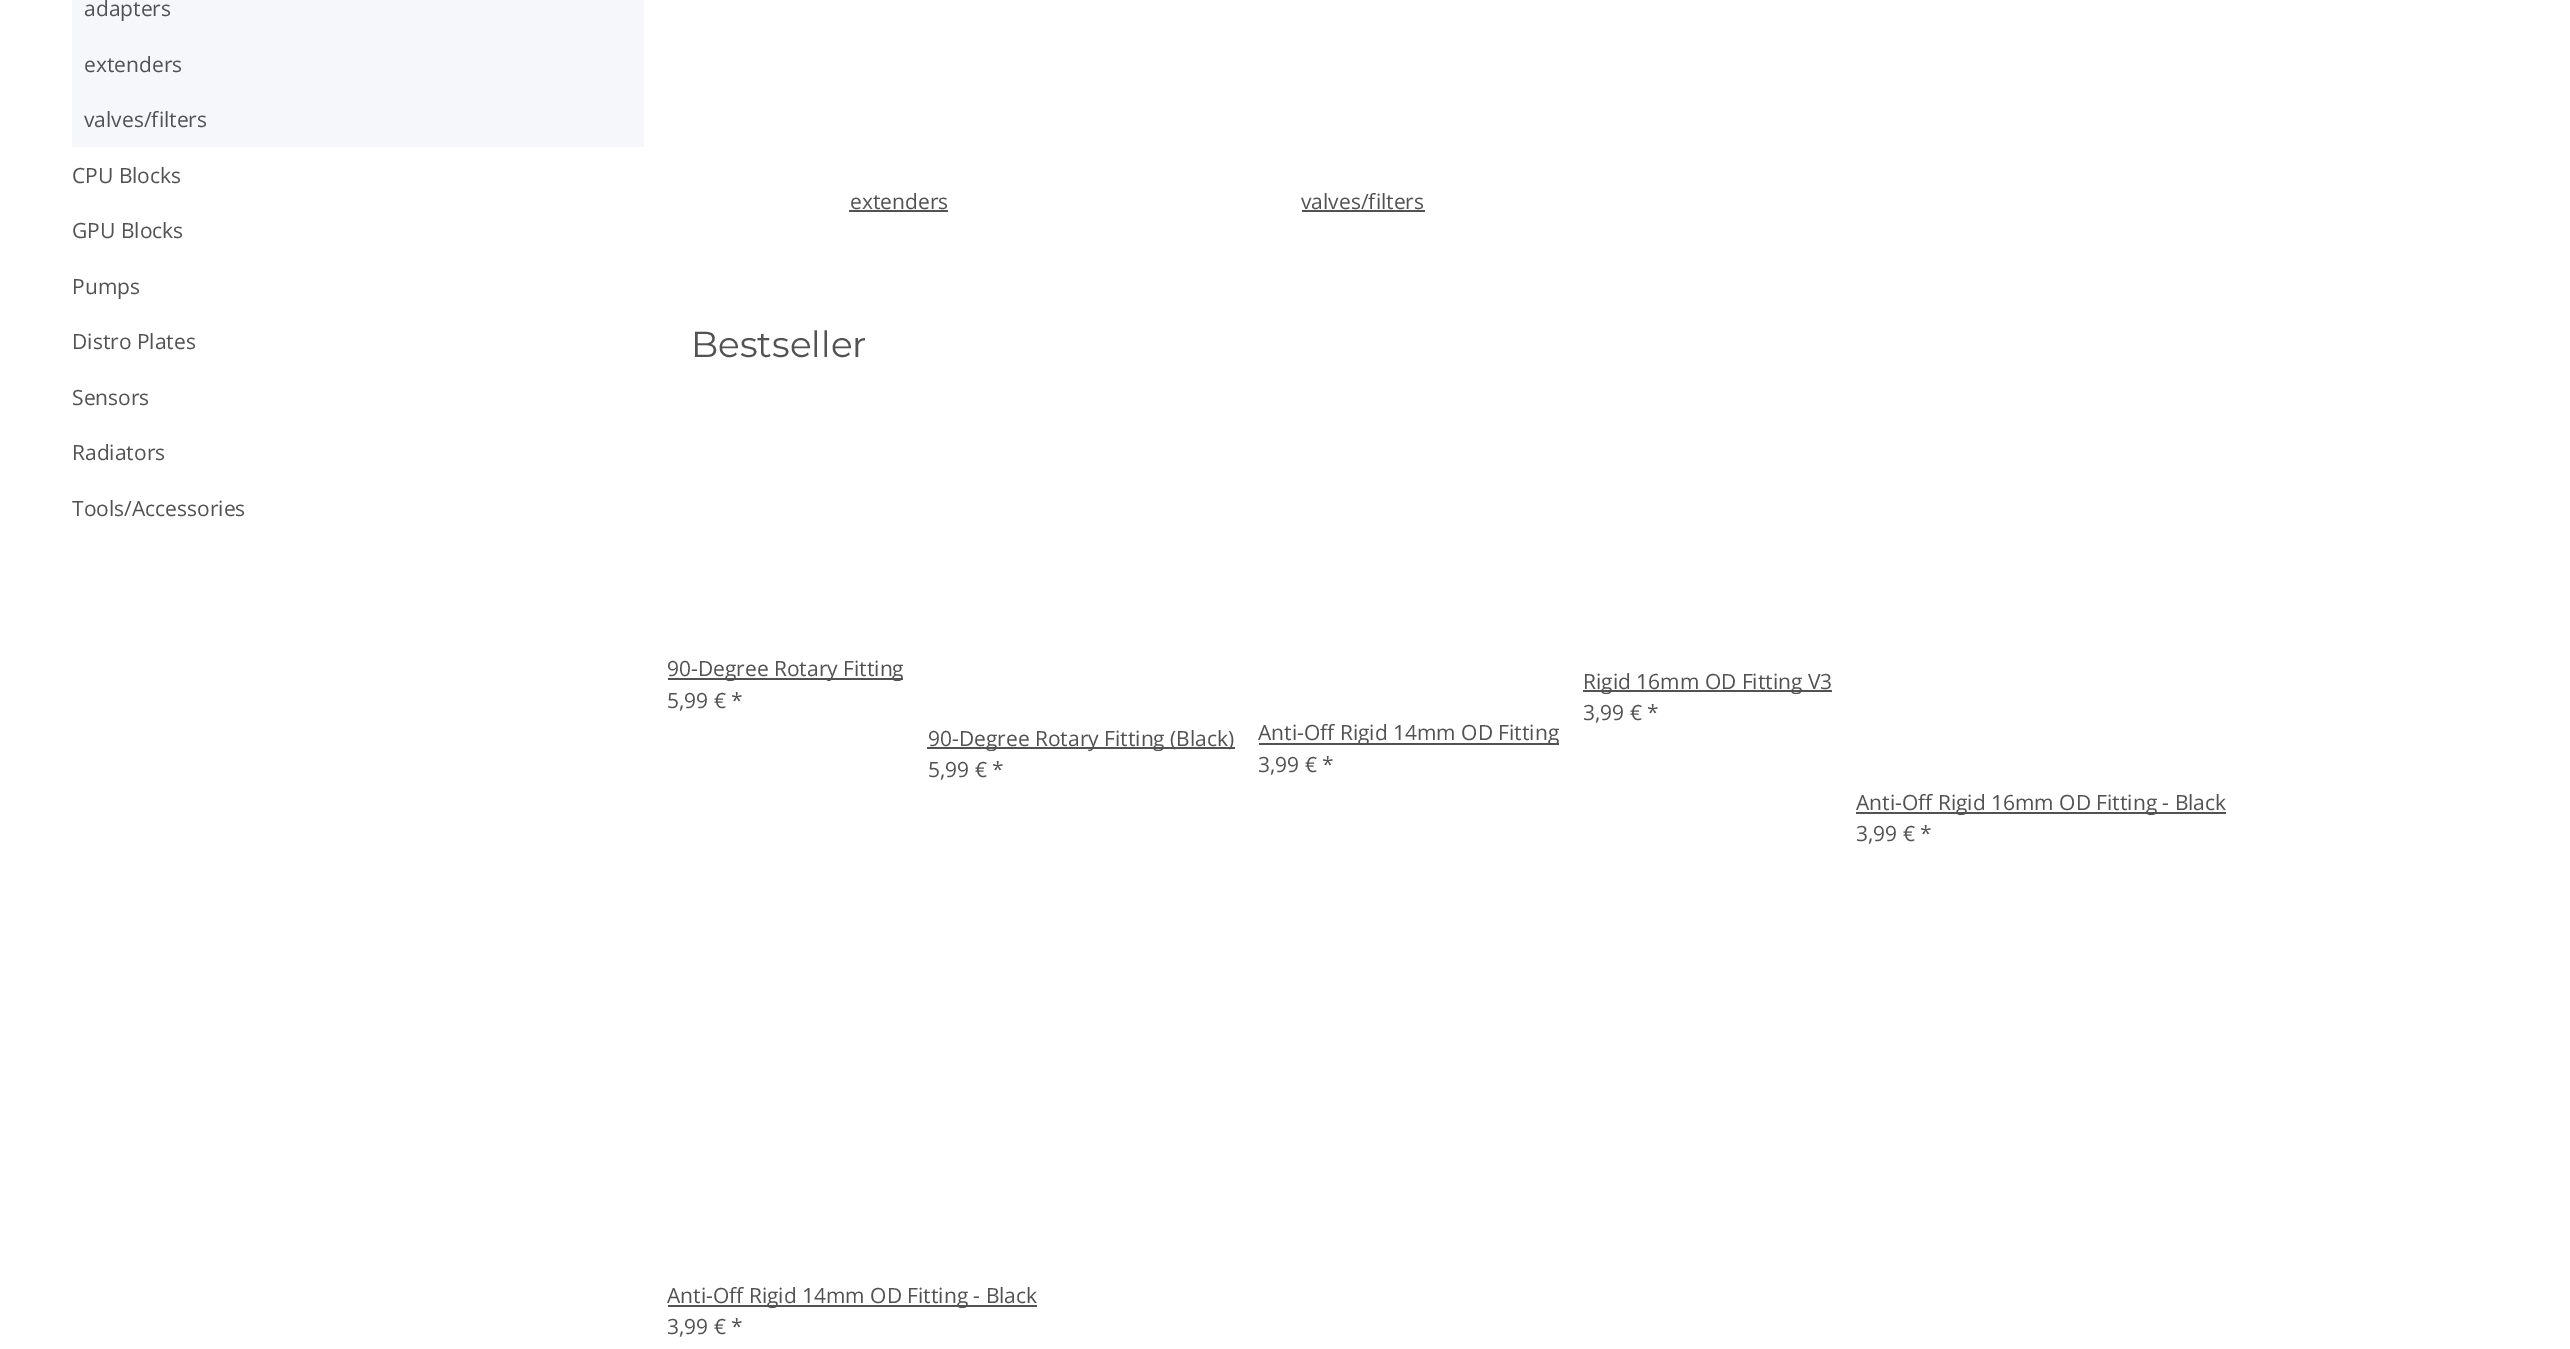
%!PS-Adobe-3.0
%%BoundingBox: 0 0 2570 1349
%%LanguageLevel: 3
%%Pages: 1
%%EndComments
%%BeginProlog
%%EndProlog
%%BeginSetup
<< /PageSize [2570 1349] >> setpagedevice
%%EndSetup
%%Page: 1 1
0 1349 translate 1 -1 scale
4 setmiterlimit
1 setgray
0 0 2570 1349 rectfill
0.961 0.969 0.98 setrgbcolor
72 0 572 147 rectfill
0.322 setgray
849 210 99 2 rectfill
1302 210 123 2 rectfill
668 678 235 2 rectfill
1583 690 249 2 rectfill
927 747 308 2 rectfill
1259 743 300 2 rectfill
1856 812 370 2 rectfill
668 1305 369 2 rectfill
/OpenSans-Regular [21 0 0 -21 0 0] selectfont
84 16 moveto (adapters) show
84 72 moveto (extenders) show
84 127 moveto (valves/filters) show
72 183 moveto (CPU Blocks) show
72 238 moveto (GPU Blocks) show
72 294 moveto (Pumps) show
72 349 moveto (Distro Plates) show
72 405 moveto (Sensors) show
72 460 moveto (Radiators) show
72 516 moveto (Tools/Accessories) show
850 209 moveto (extenders) show
1301 209 moveto (valves/filters) show
/Montserrat-Regular [36 0 0 -36 0 0] selectfont
691 357 moveto (Bestseller) show
/OpenSans-Regular [21 0 0 -21 0 0] selectfont
667 676 moveto (90-Degree Rotary Fitting) show
667 708 moveto (5,99 € *) show
1583 689 moveto (Rigid 16mm OD Fitting V3) show
1583 720 moveto (3,99 € *) show
928 746 moveto (90-Degree Rotary Fitting \(Black\)) show
928 777 moveto (5,99 € *) show
1258 740 moveto (Anti-Off Rigid 14mm OD Fitting) show
1258 772 moveto (3,99 € *) show
1856 810 moveto (Anti-Off Rigid 16mm OD Fitting - Black) show
1856 841 moveto (3,99 € *) show
667 1303 moveto (Anti-Off Rigid 14mm OD Fitting - Black) show
667 1334 moveto (3,99 € *) show
showpage
%%EOF
